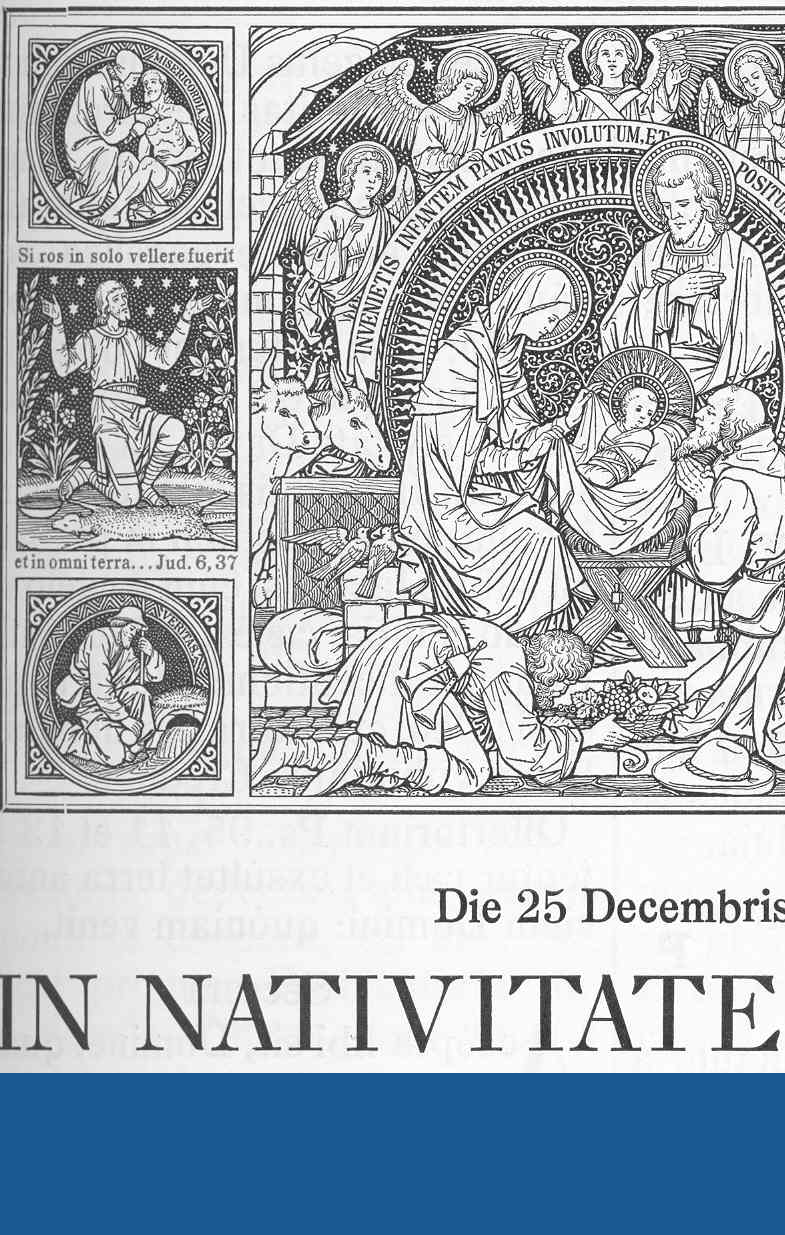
%!PS-Adobe-3.0
%%BoundingBox: 0 0 785 1235
%%LanguageLevel: 3
%%Pages: 1
%%EndComments
%%BeginProlog
/drawimage { 5 dict begin { /h /w /y /x /name } { exch def } forall
  gsave x y translate w h scale
  w h 8 [w 0 0 h 0 0] name (r) file false 3 colorimage grestore end } def
%%EndProlog
%%BeginSetup
<< /PageSize [785 1235] >> setpagedevice
%%EndSetup
%%Page: 1 1
0 1235 translate 1 -1 scale
4 setmiterlimit
0.102 0.349 0.573 setrgbcolor
0 0 785 1235 rectfill
(images/1.raw) 0 0 785 1073 drawimage
showpage
%%EOF
